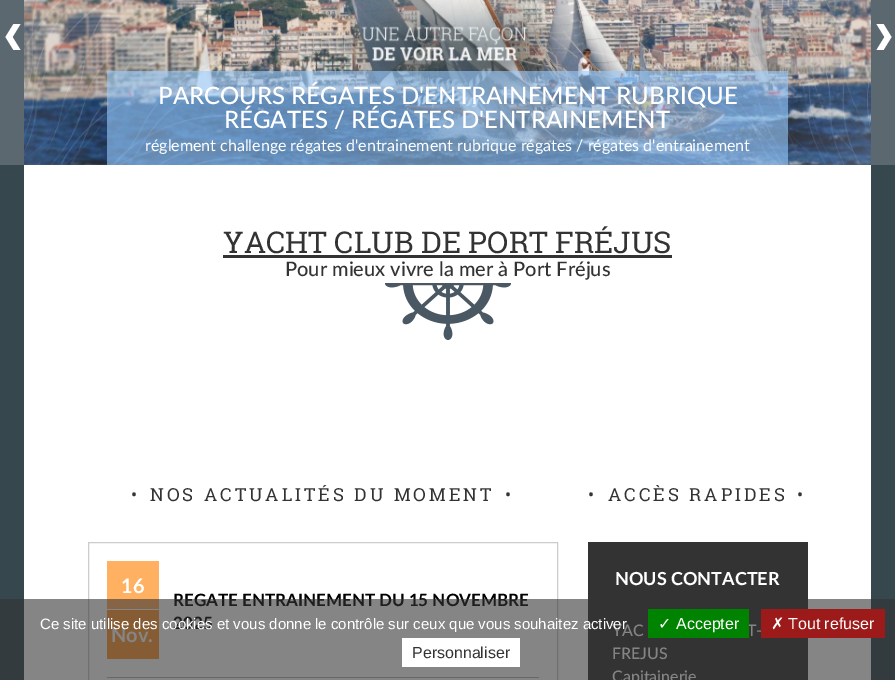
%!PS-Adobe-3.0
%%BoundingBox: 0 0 895 680
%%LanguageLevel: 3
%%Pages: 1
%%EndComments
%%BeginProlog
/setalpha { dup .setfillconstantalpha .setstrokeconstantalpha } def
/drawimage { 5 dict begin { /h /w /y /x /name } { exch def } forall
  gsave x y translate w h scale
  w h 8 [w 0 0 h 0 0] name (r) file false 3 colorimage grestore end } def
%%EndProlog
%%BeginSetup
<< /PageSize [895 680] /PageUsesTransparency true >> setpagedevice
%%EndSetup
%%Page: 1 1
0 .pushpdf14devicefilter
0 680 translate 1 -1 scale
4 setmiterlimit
1 setgray
0 0 895 680 rectfill
(images/1.raw) 0 165 895 515 drawimage
0.357 0.408 0.439 setrgbcolor
0 0 24 165 rectfill
1 setgray
newpath 13.5 24 moveto 5.5 37 lineto 13.5 50 lineto 20.5 50 lineto 12.5 37 lineto 20.5 24 lineto closepath fill
0.357 0.408 0.439 setrgbcolor
871 0 24 165 rectfill
1 setgray
newpath 883.5 50 moveto 891.5 37 lineto 883.5 24 lineto 876.5 24 lineto 884.5 37 lineto 876.5 50 lineto closepath fill
(images/2.raw) 24 0 847 165 drawimage
0.6 setalpha
0.6 0.8 1 setrgbcolor
107 71 681 94 rectfill
1 setalpha
0.2 setgray
223 255 449 3 rectfill
(images/3.raw) 385 283 126 57 drawimage
0.8 setgray
88.5 542.5 469 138 rectstroke
0.71 setgray
107 677 432 1 rectfill
1 0.694 0.38 setrgbcolor
107 561 52 48 rectfill
1 0.604 0.2 setrgbcolor
107 610 52 49 rectfill
0.2 setgray
588 542 220 138 rectfill
/Lato-Medium [24 0 0 -24 0 0] selectfont
1 setgray
158 104 moveto (PARCOURS RÉGATES D'ENTRAINEMENT RUBRIQUE) show
224 128 moveto (RÉGATES / RÉGATES D'ENTRAINEMENT) show
/Lato-Regular [16 0 0 -16 0 0] selectfont
145 151 moveto (réglement challenge régates d'entrainement rubrique régates / régates d'entrainement) show
/RobotoSlab-Regular [30 0 0 -30 0 0] selectfont
0.2 setgray
223 253 moveto (YACHT CLUB DE PORT FRÉJUS) show
/Lato-Medium [20 0 0 -20 0 0] selectfont
285 276 moveto (Pour mieux vivre la mer à Port Fréjus) show
/RobotoSlab-Regular [18 0 0 -18 0 0] selectfont
131 501 moveto 3 0 (•) ashow
150 501 moveto 3 0 (NOS ACTUALITÉS DU MOMENT) ashow
505 501 moveto 3 0 (•) ashow
/Lato-Bold [20 0 0 -20 0 0] selectfont
1 setgray
121 593 moveto (16) show
111 642 moveto (Nov.) show
/Lato-Bold [17 0 0 -17 0 0] selectfont
0 setgray
173 606 moveto (REGATE ENTRAINEMENT DU 15 NOVEMBRE) show
173 629 moveto (2025) show
/RobotoSlab-Regular [18 0 0 -18 0 0] selectfont
0.2 setgray
588 501 moveto 3 0 (•) ashow
608 501 moveto 3 0 (ACCÈS RAPIDES) ashow
797 501 moveto 3 0 (•) ashow
/Lato-Bold [18 0 0 -18 0 0] selectfont
1 setgray
615 585 moveto (NOUS CONTACTER) show
/Lato-Medium [16 0 0 -16 0 0] selectfont
612 636 moveto (YAC) show
747 636 moveto (T-) show
612 659 moveto (FREJUS) show
612 682 moveto (Capitainerie) show
0.6 setalpha
0.2 setgray
0 599 895 81 rectfill
/LiberationSans-Regular [15 0 0 -15 0 0] selectfont
1 setalpha
1 setgray
40 629 moveto (Ce site utilise des cookies et vous donne le contrôle sur ceux que vous souhaitez activer) show
0 0.514 0 setrgbcolor
648 609 101 29 rectfill
/DejaVuSans-Regular [16 0 0 -16 0 0] selectfont
1 setgray
658 629 moveto (✓) show
/LiberationSans-Regular [16 0 0 -16 0 0] selectfont
676 629 moveto (Accepter) show
0.612 0.102 0.102 setrgbcolor
761 609 124 29 rectfill
/DejaVuSans-Regular [16 0 0 -16 0 0] selectfont
1 setgray
771 629 moveto (✗) show
/LiberationSans-Regular [16 0 0 -16 0 0] selectfont
788 629 moveto (Tout refuser) show
402 638 118 29 rectfill
0.2 setgray
412 658 moveto (Personnaliser) show
.poppdf14devicefilter showpage
%%EOF
